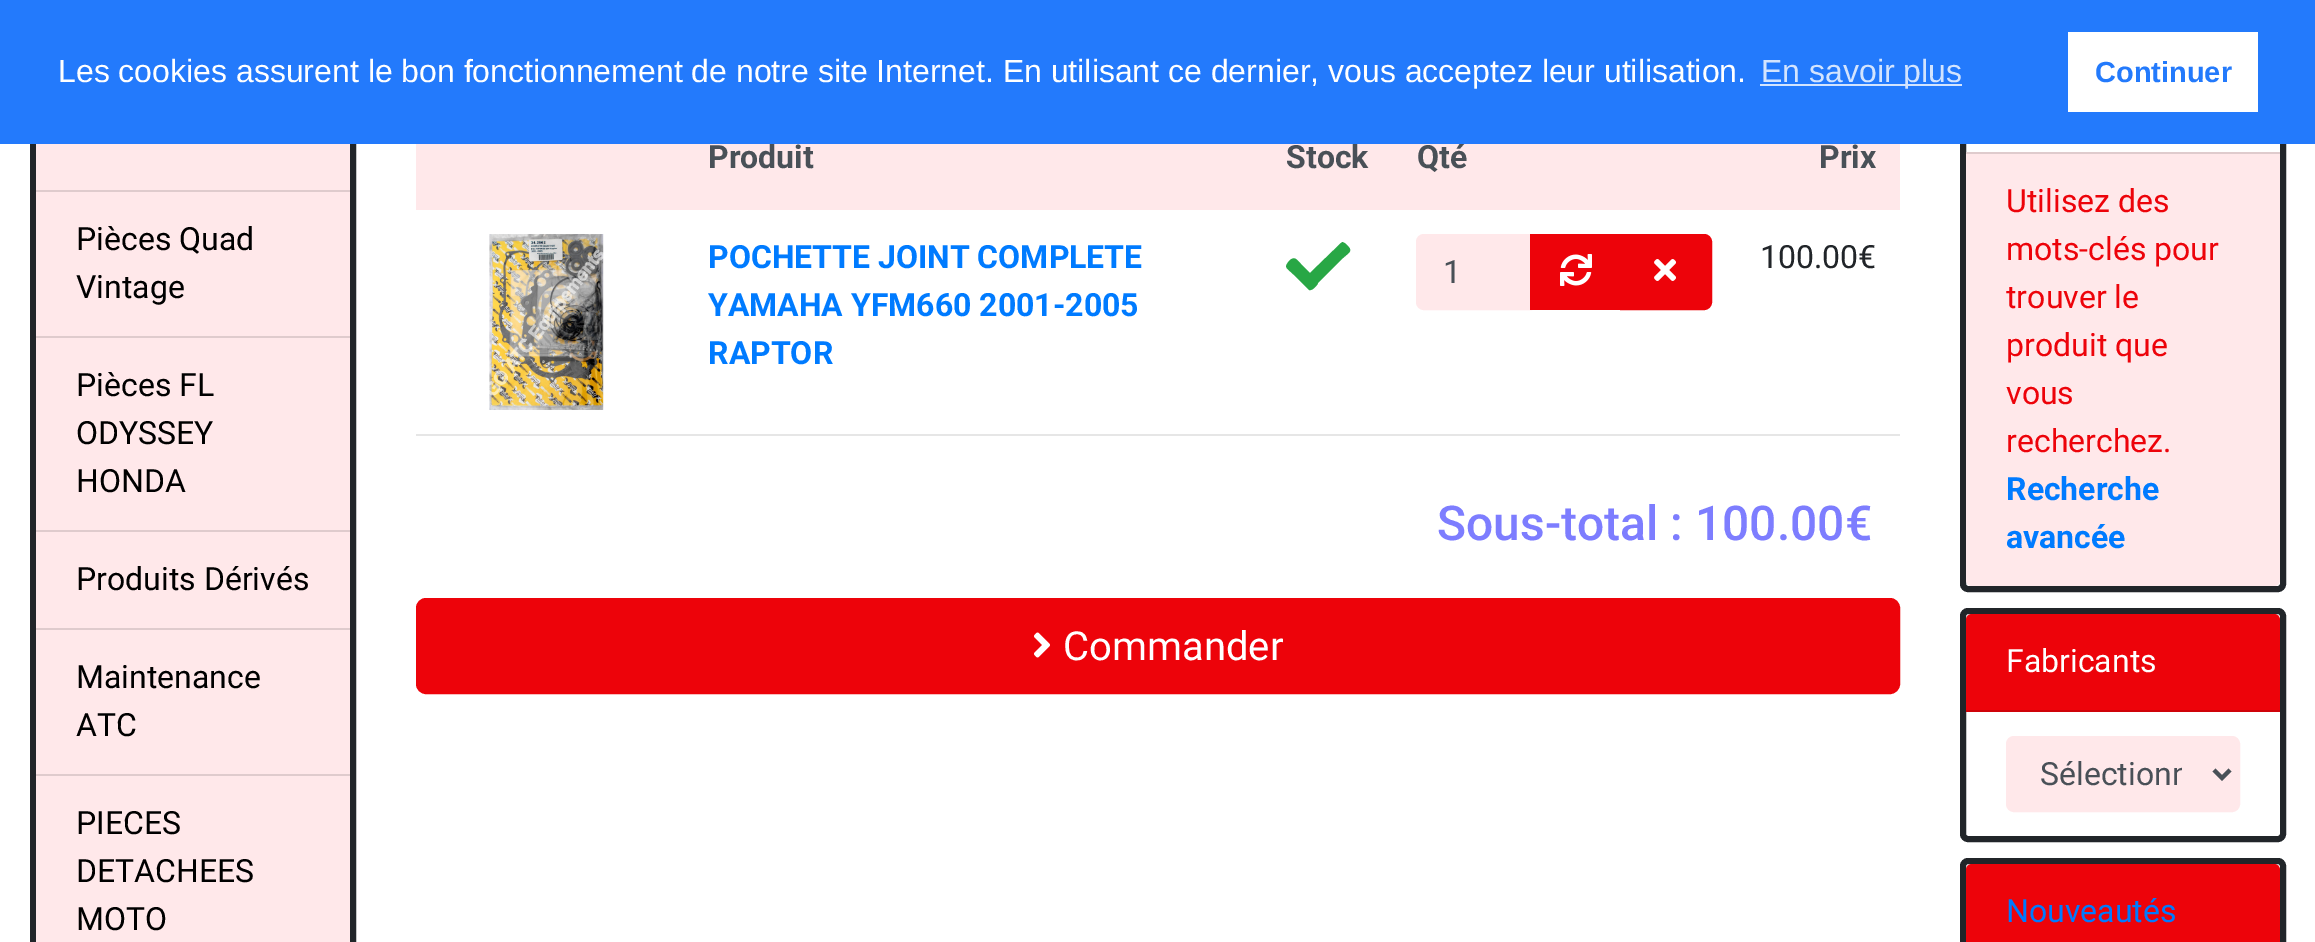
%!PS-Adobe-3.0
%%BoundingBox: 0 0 2315 942
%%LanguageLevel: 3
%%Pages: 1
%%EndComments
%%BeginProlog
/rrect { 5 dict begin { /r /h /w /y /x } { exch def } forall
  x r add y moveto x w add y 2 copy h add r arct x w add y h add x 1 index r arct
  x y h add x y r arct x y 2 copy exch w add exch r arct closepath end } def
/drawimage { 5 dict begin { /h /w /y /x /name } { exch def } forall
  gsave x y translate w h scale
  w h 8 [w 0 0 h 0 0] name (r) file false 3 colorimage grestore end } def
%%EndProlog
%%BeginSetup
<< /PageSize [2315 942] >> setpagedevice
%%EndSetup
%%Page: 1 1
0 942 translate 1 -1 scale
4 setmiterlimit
1 setgray
0 0 2315 942 rectfill
0.129 0.145 0.161 setrgbcolor
6 setlinewidth
33 -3 320 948 rectstroke
1963 -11 320 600 5 rrect stroke
0.137 0.478 0.988 setrgbcolor
0 0 2315 144 rectfill
0.827 0.894 0.996 setrgbcolor
1760 84 202 2 rectfill
1 setgray
2068 32 190 80 rectfill
1 0.91 0.918 setrgbcolor
36 144 314 46 rectfill
0.875 0.796 0.804 setrgbcolor
36 190 314 2 rectfill
1 0.91 0.918 setrgbcolor
36 192 314 144 rectfill
0.875 0.796 0.804 setrgbcolor
36 336 314 2 rectfill
1 0.91 0.918 setrgbcolor
36 338 314 192 rectfill
0.875 0.796 0.804 setrgbcolor
36 530 314 2 rectfill
1 0.91 0.918 setrgbcolor
36 532 314 96 rectfill
0.875 0.796 0.804 setrgbcolor
36 628 314 2 rectfill
1 0.91 0.918 setrgbcolor
36 630 314 144 rectfill
0.875 0.796 0.804 setrgbcolor
36 774 314 2 rectfill
1 0.91 0.918 setrgbcolor
36 776 314 166 rectfill
416 144 1484 62 rectfill
416 206 1484 4 rectfill
(images/1.raw) 489 234 115 176 drawimage
0.157 0.655 0.271 setrgbcolor
newpath 1308 289 moveto 1294 275 lineto 1286 267 1283 268 1290 260 curveto 1295 256 1297 260 1301 264 curveto 1310 273 lineto 1341 243 lineto 1343 241 1344 243 1346 244 curveto 1353 251 1351 251 1343 258 curveto 1318 283 lineto 1318 284 1313 291 1309 290 curveto closepath fill
1 0.91 0.918 setrgbcolor
newpath 1424 235 moveto 1531 235 lineto 1531 309 lineto 1424 309 lineto 1420 309 1417 306 1417 302 curveto 1417 242 lineto 1417 238 1420 235 1424 235 curveto closepath gsave fill grestore
2 setlinewidth
stroke
0.929 0.012 0.039 setrgbcolor
1530 234 90 76 rectfill
(images/2.raw) 1560 254 32 32 drawimage
newpath 1621 235 moveto 1704 235 lineto 1708 235 1711 238 1711 242 curveto 1711 302 lineto 1711 306 1708 309 1704 309 curveto 1621 309 lineto closepath gsave fill grestore
stroke
(images/3.raw) 1654 259 22 22 drawimage
0.902 setgray
416 434 1484 2 rectfill
0.929 0.012 0.039 setrgbcolor
417 599 1482 94 9 rrect gsave fill grestore
stroke
(images/4.raw) 1034 632 16 26 drawimage
1 0.91 0.918 setrgbcolor
newpath 1966 152 moveto 2280 152 lineto 2280 580 lineto 2280 583.5 2277.5 586 2274 586 curveto 1972 586 lineto 1968.5 586 1966 583.5 1966 580 curveto closepath fill
0.875 0.796 0.804 setrgbcolor
1966 152 314 2 rectfill
0.129 0.145 0.161 setrgbcolor
6 setlinewidth
1963 611 320 228 5 rrect stroke
0.929 0.012 0.039 setrgbcolor
newpath 1972 614 moveto 2274 614 lineto 2277.5 614 2280 616.5 2280 620 curveto 2280 712 lineto 1966 712 lineto 1966 620 lineto 1966 616.5 1968.5 614 1972 614 curveto closepath fill
0.812 0.012 0.035 setrgbcolor
1966 710 314 2 rectfill
1 0.91 0.918 setrgbcolor
2007 737 232 74 7 rrect gsave fill grestore
2 setlinewidth
stroke
0.286 0.314 0.341 setrgbcolor
4 setlinewidth
newpath 2214 770 moveto 2222 778 lineto 2230 770 lineto stroke
0.129 0.145 0.161 setrgbcolor
6 setlinewidth
1963 861 320 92 5 rrect stroke
0.929 0.012 0.039 setrgbcolor
newpath 1972 864 moveto 2274 864 lineto 2277.5 864 2280 866.5 2280 870 curveto 2280 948 lineto 1966 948 lineto 1966 870 lineto 1966 866.5 1968.5 864 1972 864 curveto closepath fill
/LiberationSans-Regular [32 0 0 -32 0 0] selectfont
1 setgray
58 82 moveto (Les cookies assurent le bon fonctionnement de notre site Internet. En utilisant ce dernier, vous acceptez leur utilisation.) show
0.827 0.894 0.996 setrgbcolor
1761 82 moveto (En savoir plus) show
/LiberationSans-Bold [29 0 0 -29 0 0] selectfont
0.137 0.478 0.988 setrgbcolor
2095 82 moveto (Continuer) show
/Roboto-Regular [32 0 0 -32 0 0] selectfont
0 setgray
76 250 moveto (Pièces Quad) show
76 298 moveto (Vintage) show
76 396 moveto (Pièces FL) show
76 444 moveto (ODYSSEY) show
76 492 moveto (HONDA) show
76 590 moveto (Produits Dérivés) show
76 688 moveto (Maintenance) show
76 736 moveto (ATC) show
76 834 moveto (PIECES) show
76 882 moveto (DETACHEES) show
76 930 moveto (MOTO) show
/Roboto-Bold [32 0 0 -32 0 0] selectfont
0.286 0.314 0.341 setrgbcolor
708 168 moveto (Produit) show
1286 168 moveto (Stock) show
1417 168 moveto (Qté) show
1819 168 moveto (Prix) show
0 0.482 1 setrgbcolor
708 268 moveto (POCHETTE JOINT COMPLETE) show
708 316 moveto (YAMAHA YFM660 2001-2005) show
708 364 moveto (RAPTOR) show
/Roboto-Regular [32 0 0 -32 0 0] selectfont
0.129 0.145 0.161 setrgbcolor
1760 268 moveto (100.00€) show
0.286 0.314 0.341 setrgbcolor
1443 283 moveto (1) show
/Roboto-Medium [48 0 0 -48 0 0] selectfont
0.49 0.49 1 setrgbcolor
1437 540 moveto (Sous-total : 100.00€) show
/Roboto-Regular [40 0 0 -40 0 0] selectfont
1 setgray
1063 660 moveto (Commander) show
/Roboto-Regular [32 0 0 -32 0 0] selectfont
0.929 0.012 0.039 setrgbcolor
2006 212 moveto (Utilisez des) show
2006 260 moveto (mots-clés pour) show
2006 308 moveto (trouver le) show
2006 356 moveto (produit que) show
2006 404 moveto (vous) show
2006 452 moveto (recherchez.) show
/Roboto-Bold [32 0 0 -32 0 0] selectfont
0 0.482 1 setrgbcolor
2006 500 moveto (Recherche) show
2006 548 moveto (avancée) show
/Roboto-Regular [32 0 0 -32 0 0] selectfont
1 setgray
2006 672 moveto (Fabricants) show
gsave
2040 754 142 42 rectclip
0.286 0.314 0.341 setrgbcolor
2040 785 moveto (Sélectionn) show
grestore
0 0.482 1 setrgbcolor
2006 922 moveto (Nouveautés) show
showpage
%%EOF
